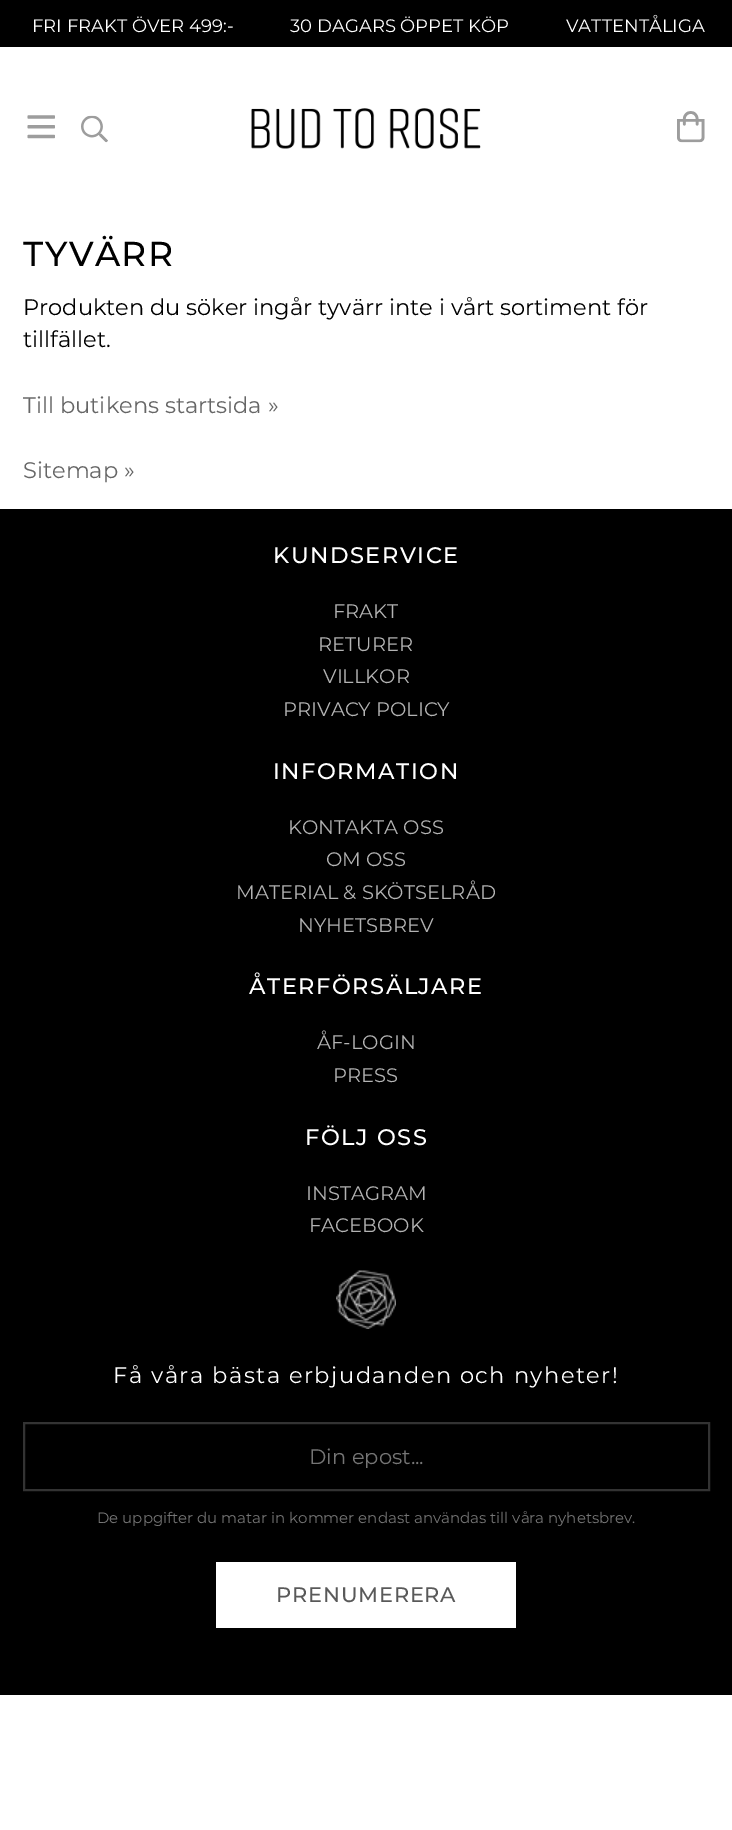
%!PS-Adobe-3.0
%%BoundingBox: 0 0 732 1830
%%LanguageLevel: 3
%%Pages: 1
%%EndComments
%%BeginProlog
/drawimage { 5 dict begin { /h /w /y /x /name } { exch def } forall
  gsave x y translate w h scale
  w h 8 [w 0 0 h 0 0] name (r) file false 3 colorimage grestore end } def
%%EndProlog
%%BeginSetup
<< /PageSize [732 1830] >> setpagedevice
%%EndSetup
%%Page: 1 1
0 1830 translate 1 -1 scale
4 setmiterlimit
1 setgray
0 0 732 1830 rectfill
0 setgray
0 0 732 47 rectfill
(images/1.raw) 27 115 28 24 drawimage
(images/2.raw) 81 115 27 28 drawimage
(images/3.raw) 251 108 230 41 drawimage
(images/4.raw) 677 111 28 32 drawimage
0 509 732 1186 rectfill
(images/5.raw) 336 1270 60 59 drawimage
0.2 setgray
2 setlinewidth
24 1423 685 67 rectstroke
1 setgray
216 1562 300 66 rectfill
/Montserrat-Regular [18 0 0 -18 0 0] selectfont
32 32 moveto (FRI FRAKT ÖVER 499:-            30 DAGARS ÖPPET KÖP            VATTENTÅLIGA) show
gsave
23 233 687 253 rectclip
/Montserrat-Medium [34.5 0 0 -34.5 0 0] selectfont
0 setgray
23 266 moveto 1.5 0 (TYVÄRR) ashow
grestore
/Montserrat-Regular [22.5 0 0 -22.5 0 0] selectfont
0 setgray
23 315 moveto (Produkten du söker ingår tyvärr inte i vårt sortiment för) show
23 347 moveto (tillfället.) show
0.4 setgray
23 413 moveto (Till butikens startsida ») show
23 478 moveto (Sitemap ») show
/Montserrat-Medium [22.5 0 0 -22.5 0 0] selectfont
1 setgray
273 563 moveto 1.5 0 (KUNDSERVICE) ashow
/Montserrat-Regular [19.5 0 0 -19.5 0 0] selectfont
0.702 setgray
333 618 moveto (FRAKT) show
318 651 moveto (RETURER) show
323 683 moveto (VILLKOR) show
283 716 moveto (PRIVACY POLICY) show
/Montserrat-Medium [22.5 0 0 -22.5 0 0] selectfont
1 setgray
273 779 moveto 1.5 0 (INFORMATION) ashow
/Montserrat-Regular [19.5 0 0 -19.5 0 0] selectfont
0.702 setgray
288 834 moveto (KONTAKTA OSS) show
326 866 moveto (OM OSS) show
236 899 moveto (MATERIAL & SKÖTSELRÅD) show
298 932 moveto (NYHETSBREV) show
/Montserrat-Medium [22.5 0 0 -22.5 0 0] selectfont
1 setgray
249 994 moveto 1.5 0 (ÅTERFÖRSÄLJARE) ashow
/Montserrat-Regular [19.5 0 0 -19.5 0 0] selectfont
0.702 setgray
317 1049 moveto (ÅF-LOGIN) show
333 1082 moveto (PRESS) show
/Montserrat-Medium [22.5 0 0 -22.5 0 0] selectfont
1 setgray
305 1145 moveto 1.5 0 (FÖLJ OSS) ashow
/Montserrat-Regular [19.5 0 0 -19.5 0 0] selectfont
0.702 setgray
306 1200 moveto (INSTAGRAM) show
309 1232 moveto (FACEBOOK) show
/Montserrat-Regular [22.5 0 0 -22.5 0 0] selectfont
1 setgray
113 1383 moveto 1.5 0 (Få våra bästa erbjudanden och nyheter!) ashow
/Montserrat-Regular [21 0 0 -21 0 0] selectfont
0.459 setgray
309 1464 moveto (Din epost...) show
/Montserrat-Regular [15 0 0 -15 0 0] selectfont
97 1523 moveto (De uppgifter du matar in kommer endast användas till våra nyhetsbrev.) show
/Montserrat-Medium [21 0 0 -21 0 0] selectfont
0.349 setgray
276 1602 moveto 0.75 0 (PRENUMERERA) ashow
showpage
%%EOF
